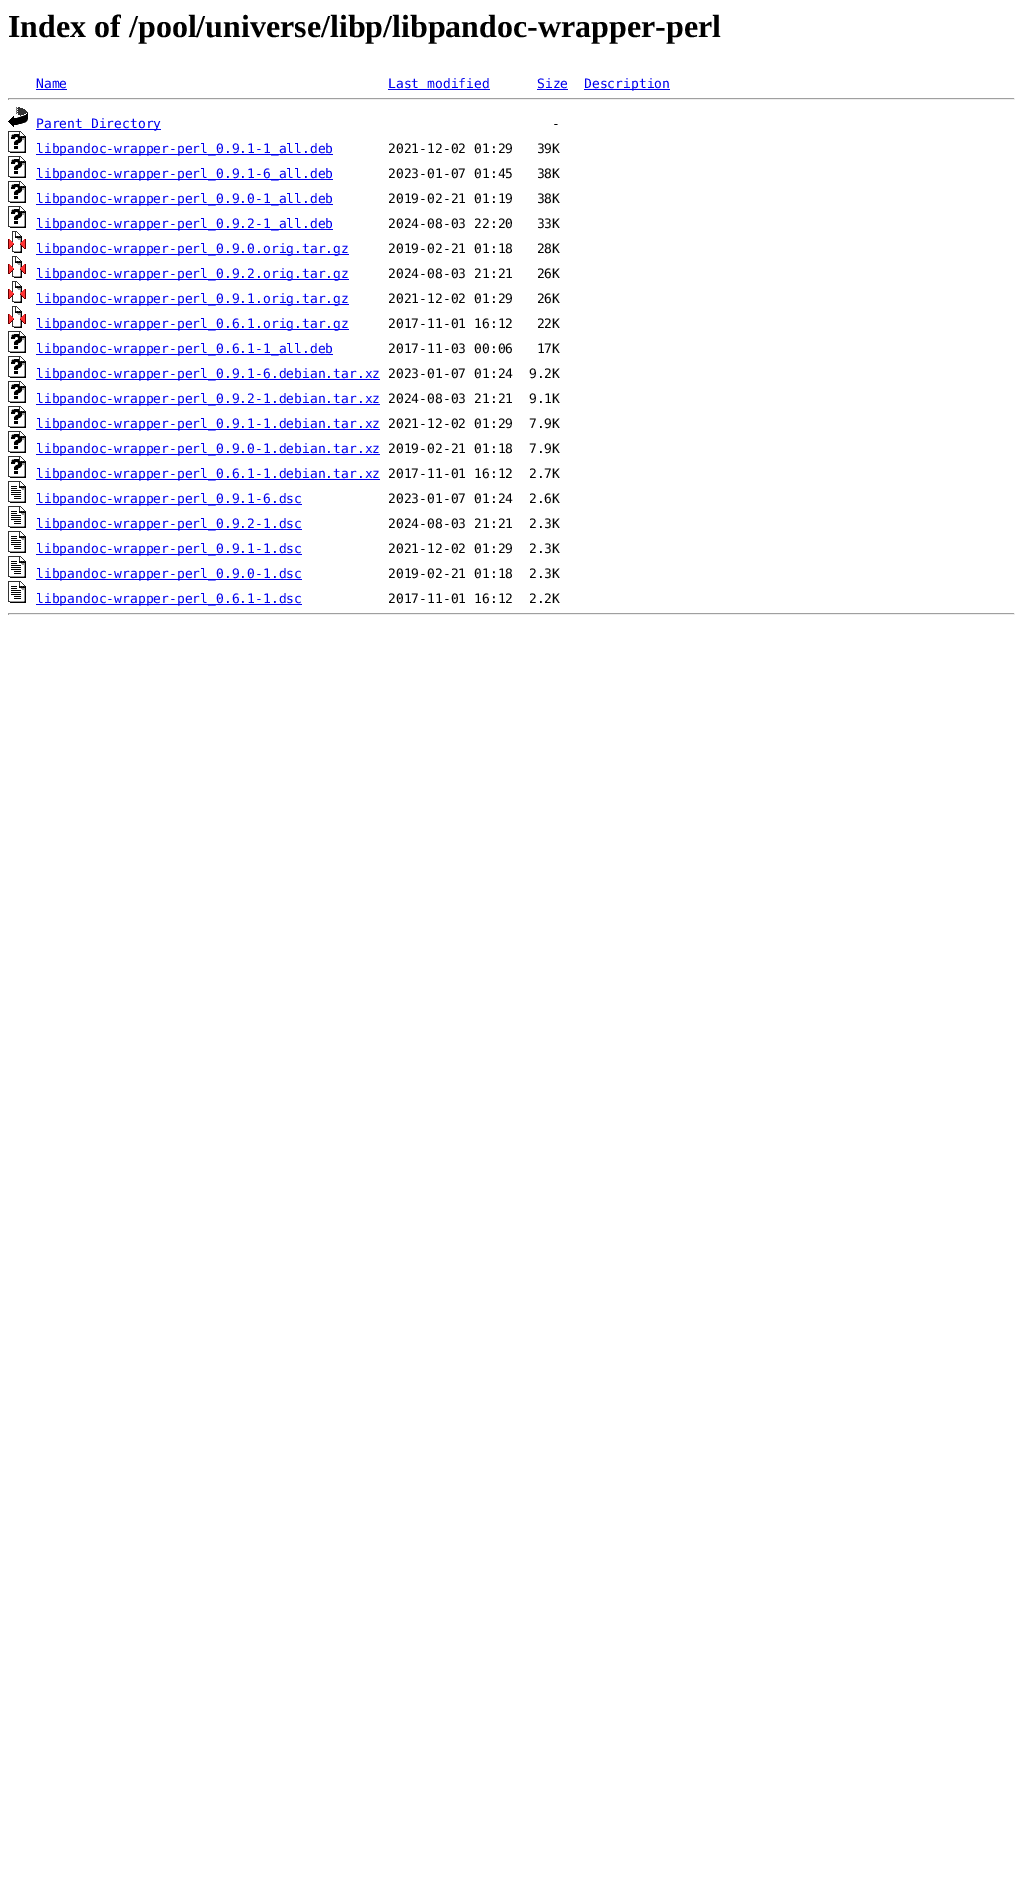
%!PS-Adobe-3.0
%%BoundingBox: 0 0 1023 1891
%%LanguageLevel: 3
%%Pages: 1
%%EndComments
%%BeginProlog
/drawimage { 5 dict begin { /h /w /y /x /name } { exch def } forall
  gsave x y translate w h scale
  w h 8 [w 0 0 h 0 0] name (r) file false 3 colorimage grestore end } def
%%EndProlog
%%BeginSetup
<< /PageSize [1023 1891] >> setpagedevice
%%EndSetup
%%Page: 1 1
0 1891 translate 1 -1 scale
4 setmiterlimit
1 setgray
0 0 1023 1891 rectfill
0 0 0.933 setrgbcolor
36 89 31 1 rectfill
388 89 102 1 rectfill
537 89 31 1 rectfill
584 89 86 1 rectfill
0.624 setgray
8 98 1007 1 rectfill
0.933 setgray
1014 98 1 2 rectfill
8 99 1007 1 rectfill
0.624 setgray
8 98 1 2 rectfill
(images/1.raw) 8 107 20 20 drawimage
0 0 0.933 setrgbcolor
36 129 125 1 rectfill
(images/2.raw) 8 131 18 22 drawimage
36 154 297 1 rectfill
(images/2.raw) 8 156 18 22 drawimage
36 179 297 1 rectfill
(images/2.raw) 8 181 18 22 drawimage
36 204 297 1 rectfill
(images/2.raw) 8 206 18 22 drawimage
36 229 297 1 rectfill
(images/3.raw) 8 231 18 22 drawimage
36 254 313 1 rectfill
(images/3.raw) 8 256 18 22 drawimage
36 279 313 1 rectfill
(images/3.raw) 8 281 18 22 drawimage
36 304 313 1 rectfill
(images/3.raw) 8 306 18 22 drawimage
36 329 313 1 rectfill
(images/2.raw) 8 331 18 22 drawimage
36 354 297 1 rectfill
(images/2.raw) 8 356 18 22 drawimage
36 379 344 1 rectfill
(images/2.raw) 8 381 18 22 drawimage
36 404 344 1 rectfill
(images/2.raw) 8 406 18 22 drawimage
36 429 344 1 rectfill
(images/2.raw) 8 431 18 22 drawimage
36 454 344 1 rectfill
(images/2.raw) 8 456 18 22 drawimage
36 479 344 1 rectfill
(images/4.raw) 8 481 18 22 drawimage
36 504 266 1 rectfill
(images/4.raw) 8 506 18 22 drawimage
36 529 266 1 rectfill
(images/4.raw) 8 531 18 22 drawimage
36 554 266 1 rectfill
(images/4.raw) 8 556 18 22 drawimage
36 579 266 1 rectfill
(images/4.raw) 8 581 18 22 drawimage
36 604 266 1 rectfill
0.624 setgray
8 613 1007 1 rectfill
0.933 setgray
1014 613 1 2 rectfill
8 614 1007 1 rectfill
0.624 setgray
8 613 1 2 rectfill
/LiberationSerif-Bold [32 0 0 -32 0 0] selectfont
0 setgray
8 37 moveto (Index of /pool/universe/libp/libpandoc-wrapper-perl) show
/DejaVuSansMono-Regular [13 0 0 -13 0 0] selectfont
0 0 0.933 setrgbcolor
36 88 moveto (Name) show
388 88 moveto (Last modified) show
537 88 moveto (Size) show
584 88 moveto (Description) show
36 128 moveto (Parent Directory) show
0 setgray
552 128 moveto (-) show
0 0 0.933 setrgbcolor
36 153 moveto (libpandoc-wrapper-perl_0.9.1-1_all.deb) show
0 setgray
388 153 moveto (2021-12-02 01:29   39K) show
0 0 0.933 setrgbcolor
36 178 moveto (libpandoc-wrapper-perl_0.9.1-6_all.deb) show
0 setgray
388 178 moveto (2023-01-07 01:45   38K) show
0 0 0.933 setrgbcolor
36 203 moveto (libpandoc-wrapper-perl_0.9.0-1_all.deb) show
0 setgray
388 203 moveto (2019-02-21 01:19   38K) show
0 0 0.933 setrgbcolor
36 228 moveto (libpandoc-wrapper-perl_0.9.2-1_all.deb) show
0 setgray
388 228 moveto (2024-08-03 22:20   33K) show
0 0 0.933 setrgbcolor
36 253 moveto (libpandoc-wrapper-perl_0.9.0.orig.tar.gz) show
0 setgray
388 253 moveto (2019-02-21 01:18   28K) show
0 0 0.933 setrgbcolor
36 278 moveto (libpandoc-wrapper-perl_0.9.2.orig.tar.gz) show
0 setgray
388 278 moveto (2024-08-03 21:21   26K) show
0 0 0.933 setrgbcolor
36 303 moveto (libpandoc-wrapper-perl_0.9.1.orig.tar.gz) show
0 setgray
388 303 moveto (2021-12-02 01:29   26K) show
0 0 0.933 setrgbcolor
36 328 moveto (libpandoc-wrapper-perl_0.6.1.orig.tar.gz) show
0 setgray
388 328 moveto (2017-11-01 16:12   22K) show
0 0 0.933 setrgbcolor
36 353 moveto (libpandoc-wrapper-perl_0.6.1-1_all.deb) show
0 setgray
388 353 moveto (2017-11-03 00:06   17K) show
0 0 0.933 setrgbcolor
36 378 moveto (libpandoc-wrapper-perl_0.9.1-6.debian.tar.xz) show
0 setgray
388 378 moveto (2023-01-07 01:24  9.2K) show
0 0 0.933 setrgbcolor
36 403 moveto (libpandoc-wrapper-perl_0.9.2-1.debian.tar.xz) show
0 setgray
388 403 moveto (2024-08-03 21:21  9.1K) show
0 0 0.933 setrgbcolor
36 428 moveto (libpandoc-wrapper-perl_0.9.1-1.debian.tar.xz) show
0 setgray
388 428 moveto (2021-12-02 01:29  7.9K) show
0 0 0.933 setrgbcolor
36 453 moveto (libpandoc-wrapper-perl_0.9.0-1.debian.tar.xz) show
0 setgray
388 453 moveto (2019-02-21 01:18  7.9K) show
0 0 0.933 setrgbcolor
36 478 moveto (libpandoc-wrapper-perl_0.6.1-1.debian.tar.xz) show
0 setgray
388 478 moveto (2017-11-01 16:12  2.7K) show
0 0 0.933 setrgbcolor
36 503 moveto (libpandoc-wrapper-perl_0.9.1-6.dsc) show
0 setgray
388 503 moveto (2023-01-07 01:24  2.6K) show
0 0 0.933 setrgbcolor
36 528 moveto (libpandoc-wrapper-perl_0.9.2-1.dsc) show
0 setgray
388 528 moveto (2024-08-03 21:21  2.3K) show
0 0 0.933 setrgbcolor
36 553 moveto (libpandoc-wrapper-perl_0.9.1-1.dsc) show
0 setgray
388 553 moveto (2021-12-02 01:29  2.3K) show
0 0 0.933 setrgbcolor
36 578 moveto (libpandoc-wrapper-perl_0.9.0-1.dsc) show
0 setgray
388 578 moveto (2019-02-21 01:18  2.3K) show
0 0 0.933 setrgbcolor
36 603 moveto (libpandoc-wrapper-perl_0.6.1-1.dsc) show
0 setgray
388 603 moveto (2017-11-01 16:12  2.2K) show
showpage
%%EOF
